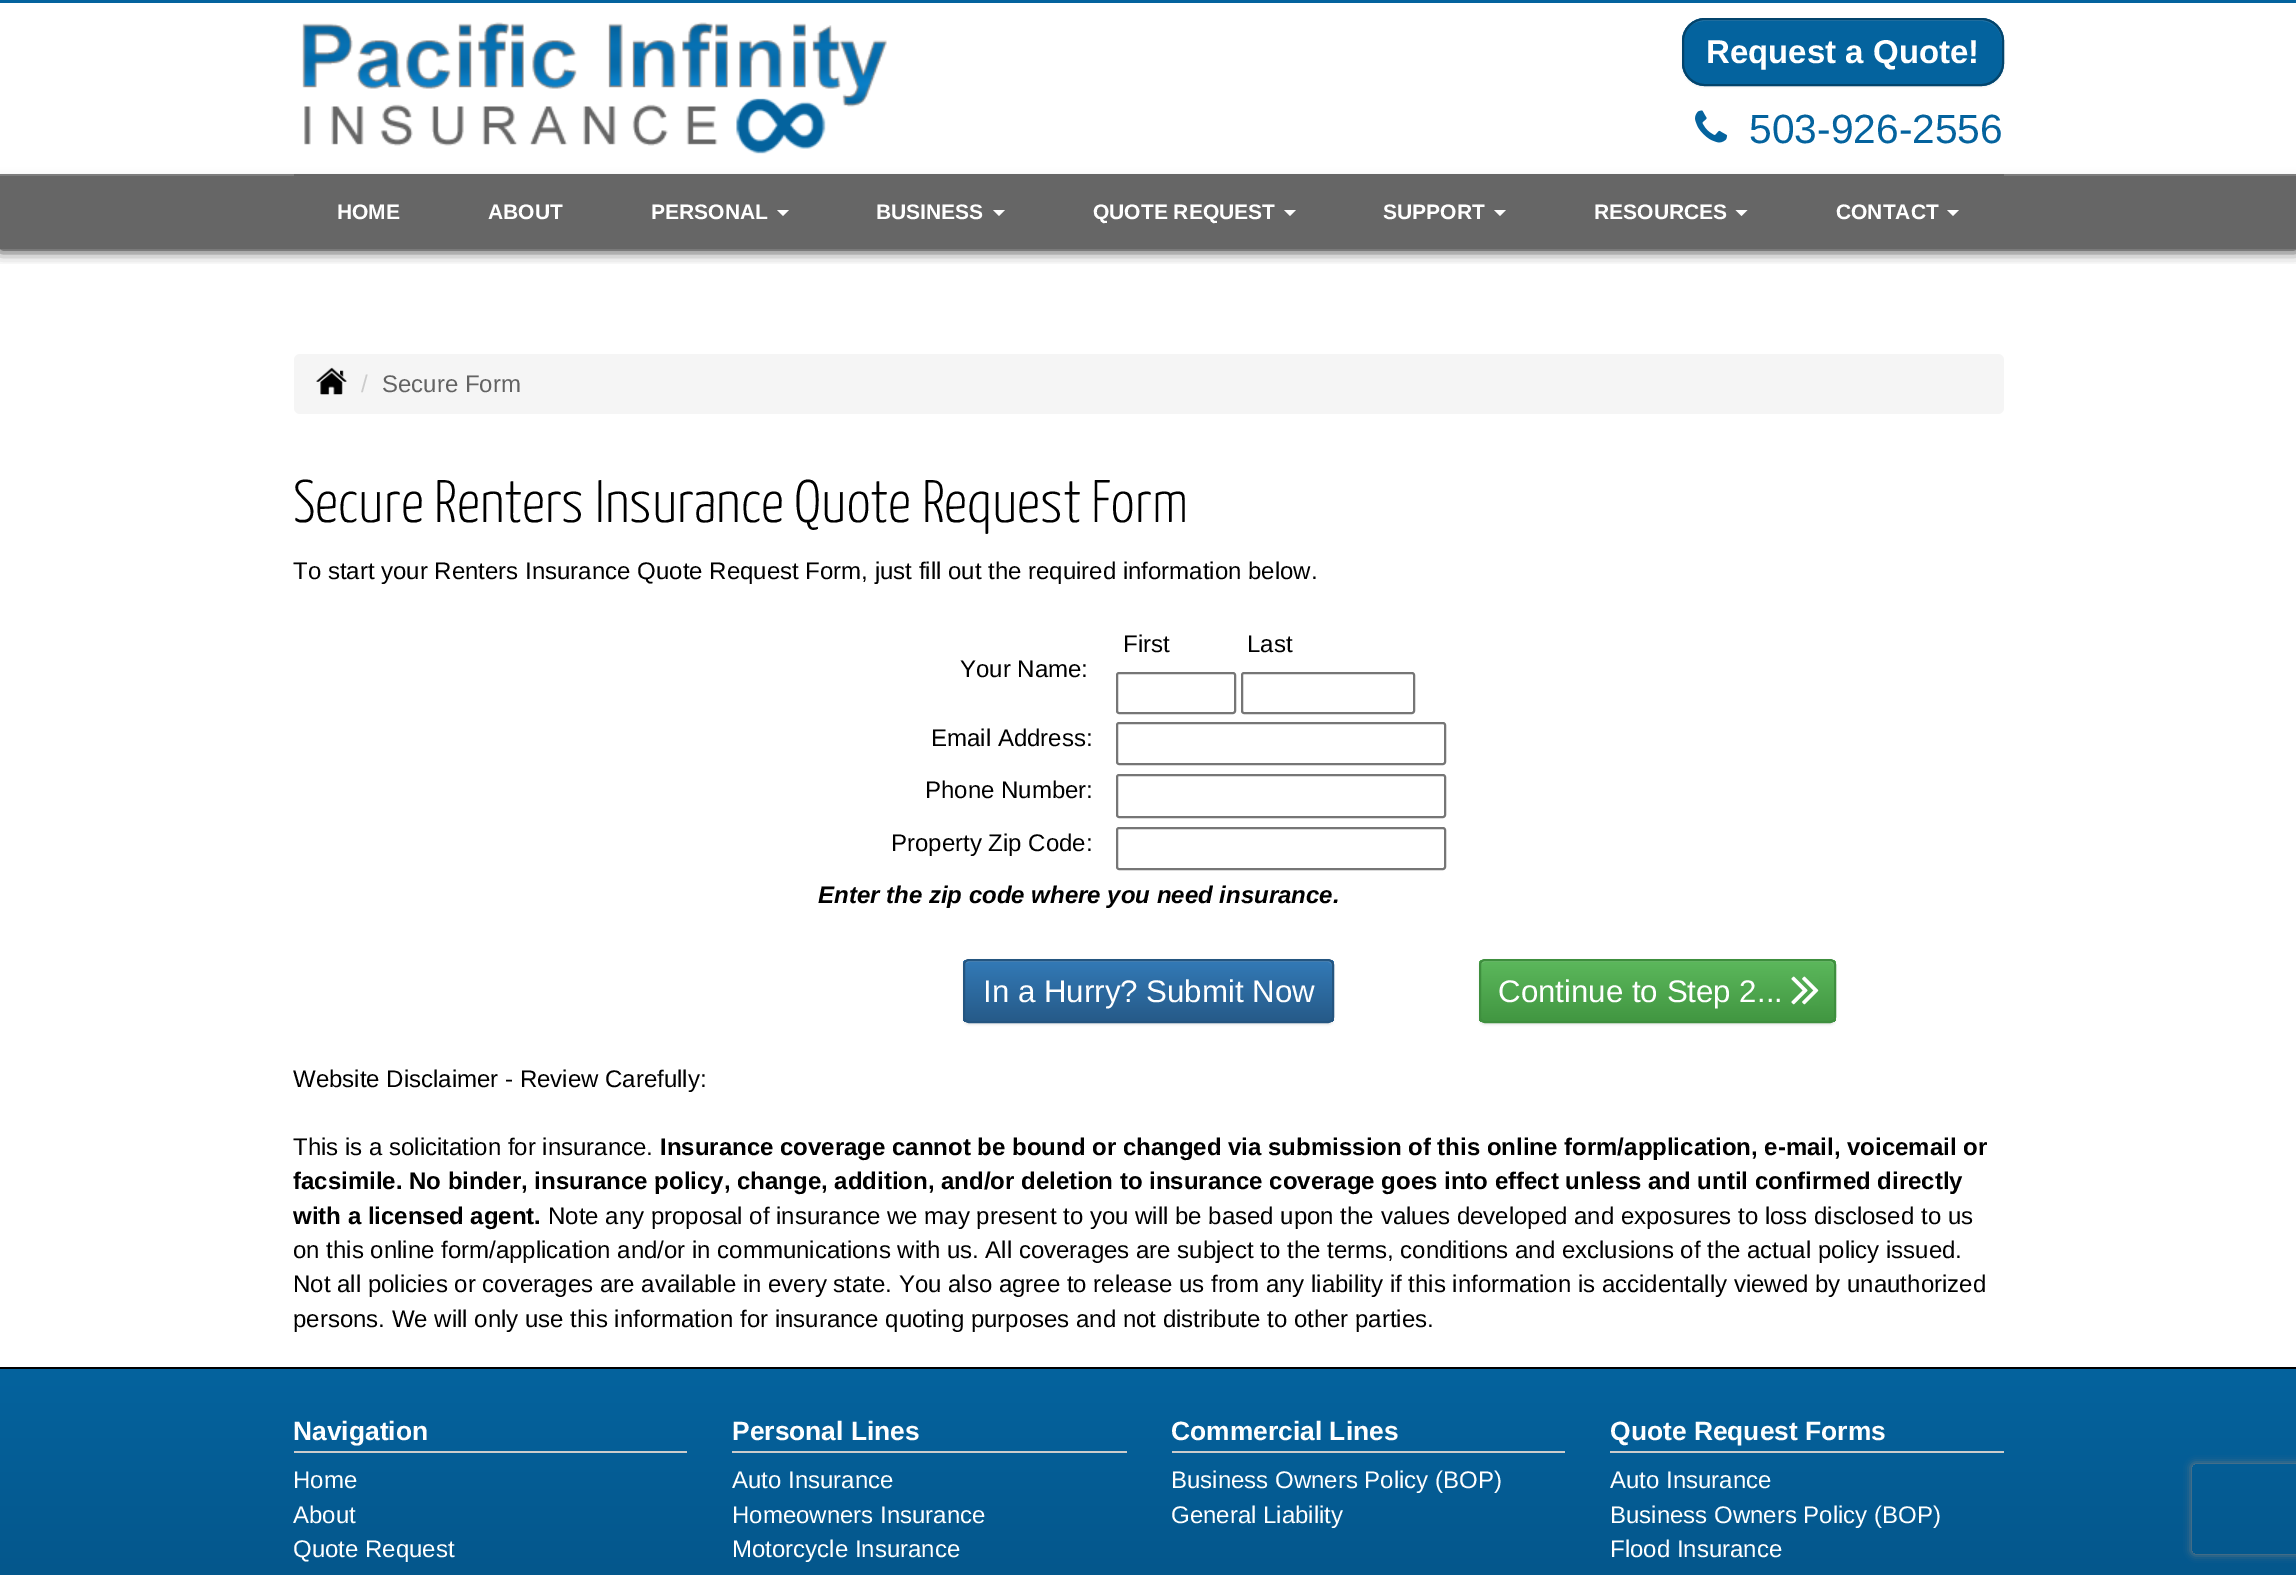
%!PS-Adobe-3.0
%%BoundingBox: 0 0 2296 1575
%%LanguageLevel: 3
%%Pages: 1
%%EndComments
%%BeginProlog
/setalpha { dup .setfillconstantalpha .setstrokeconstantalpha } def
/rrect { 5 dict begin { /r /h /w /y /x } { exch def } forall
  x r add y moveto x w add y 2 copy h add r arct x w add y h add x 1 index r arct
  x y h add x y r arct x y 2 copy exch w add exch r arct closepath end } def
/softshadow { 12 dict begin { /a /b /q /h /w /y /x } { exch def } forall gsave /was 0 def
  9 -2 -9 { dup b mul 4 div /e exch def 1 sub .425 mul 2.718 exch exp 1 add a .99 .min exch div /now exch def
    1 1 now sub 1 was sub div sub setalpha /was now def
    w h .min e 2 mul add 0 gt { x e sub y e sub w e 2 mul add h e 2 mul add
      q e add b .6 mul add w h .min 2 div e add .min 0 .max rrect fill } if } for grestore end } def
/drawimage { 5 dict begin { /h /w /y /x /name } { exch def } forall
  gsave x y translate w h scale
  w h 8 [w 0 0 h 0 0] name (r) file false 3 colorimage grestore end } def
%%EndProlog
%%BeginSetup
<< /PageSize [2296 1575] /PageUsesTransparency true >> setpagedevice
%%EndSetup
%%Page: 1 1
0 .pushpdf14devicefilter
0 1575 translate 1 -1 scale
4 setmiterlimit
1 setgray
0 0 2296 1575 rectfill
gsave
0 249 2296 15 rectclip
0 setgray
0 0 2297 249 0 7.5 1 softshadow
grestore
0.016 0.388 0.62 setrgbcolor
0 0 2296 3 rectfill
(images/1.raw) 302 22 585 132 drawimage
0 setgray
1682 20 322 67 23 1 0.07 softshadow
0.016 0.388 0.62 setrgbcolor
1682 18 322 68 23 rrect fill
0.165 0.478 0.678 setrgbcolor
newpath 1704 21 moveto 1982 21 lineto 1993 21 2002 30 2002 42 curveto 2002 64 lineto 2002 68 2001 72 1999 75 curveto 2002 71 2003 67 2003 63 curveto 2003 41 lineto 2003 29 1994 20 1982 20 curveto 1704 20 lineto 1692 20 1683 29 1683 41 curveto 1683 42 lineto 1683 30 1692 21 1704 21 curveto closepath fill
0.012 0.267 0.424 setrgbcolor
2 setlinewidth
1683 19 320 66 22 rrect stroke
(images/2.raw) 1695 110 33 33 drawimage
0 setgray
0 176 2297 75 0 4 0.07 softshadow
0.4 setgray
0 176 2296 73 rectfill
0.49 setgray
0 174 2296 2 rectfill
0.4 setgray
294 174 1710 2 rectfill
1 setgray
newpath 777 210 moveto 789 210 lineto 783 216 lineto closepath fill
newpath 993 210 moveto 1005 210 lineto 999 216 lineto closepath fill
newpath 1284 210 moveto 1296 210 lineto 1290 216 lineto closepath fill
newpath 1494 210 moveto 1506 210 lineto 1500 216 lineto closepath fill
newpath 1735.5 210 moveto 1747.5 210 lineto 1741.5 216 lineto closepath fill
newpath 1947 210 moveto 1959 210 lineto 1953 216 lineto closepath fill
0.961 setgray
294 354 1710 60 6 rrect fill
(images/3.raw) 316 367 31 28 drawimage
0.463 setgray
1117 673 118 40 2 rrect stroke
1242 673 172 40 2 rrect stroke
1117 723 328 41 2 rrect stroke
1117 775 328 42 2 rrect stroke
1117 828 328 41 2 rrect stroke
0 setgray
963 960 371 65 6 1 0.07 softshadow
gsave
963 959 371 64 6 rrect clip newpath
gsave newpath 963 960 moveto 1334 960 lineto 1334 1022 lineto 963 1022 lineto closepath clip newpath
<< /ShadingType 2 /ColorSpace /DeviceRGB /Coords [1148 960 1148 1022] /Extend [true true] /Function << /FunctionType 2 /Domain [0 1] /C0 [0.2 0.478 0.718] /C1 [0.149 0.353 0.533] /N 1 >> >> shfill grestore
grestore
0.15 setalpha
1 setgray
newpath 969 962 moveto 1328 962 lineto 1330 962 1332 964 1332 966 curveto 1332 965 lineto 1332 962 1330 960 1327 960 curveto 970 960 lineto 968 960 966 962 965 964 curveto 966 963 968 962 969 962 curveto closepath fill
1 setalpha
0.141 0.333 0.502 setrgbcolor
964 960 369 62 5 rrect stroke
gsave newpath 0 1369 moveto 2296 1369 lineto 2296 1575 lineto 0 1575 lineto closepath clip newpath
<< /ShadingType 2 /ColorSpace /DeviceRGB /Coords [1148 1368 1148 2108] /Extend [true true] /Function << /FunctionType 2 /Domain [0 1] /C0 [0.016 0.388 0.62] /C1 [0.008 0.227 0.361] /N 1 >> >> shfill grestore
gsave
newpath 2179 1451 moveto 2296 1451 lineto 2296 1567 lineto 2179 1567 lineto closepath 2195 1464 moveto 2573 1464 lineto 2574.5 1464 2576 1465.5 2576 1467 curveto 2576 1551 lineto 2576 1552.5 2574.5 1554 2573 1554 curveto 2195 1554 lineto 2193.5 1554 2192 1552.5 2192 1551 curveto 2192 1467 lineto 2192 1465.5 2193.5 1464 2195 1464 curveto closepath eoclip newpath
0.502 setgray
2192 1464 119 90 3 4 1 softshadow
grestore
0 setgray
1479 960 357 65 6 1 0.07 softshadow
gsave
1479 959 357 64 6 rrect clip newpath
gsave newpath 1479 960 moveto 1836 960 lineto 1836 1022 lineto 1479 1022 lineto closepath clip newpath
<< /ShadingType 2 /ColorSpace /DeviceRGB /Coords [1658 960 1658 1022] /Extend [true true] /Function << /FunctionType 2 /Domain [0 1] /C0 [0.361 0.722 0.361] /C1 [0.255 0.588 0.255] /N 1 >> >> shfill grestore
grestore
0.15 setalpha
1 setgray
newpath 1485 962 moveto 1830 962 lineto 1832 962 1834 964 1834 966 curveto 1834 1018 lineto 1833 1021 lineto 1834 1020 1835 1018 1835 1017 curveto 1835 965 lineto 1835 962 1833 960 1830 960 curveto 1486 960 lineto 1484 960 1482 962 1481 964 curveto 1482 963 1484 962 1485 962 curveto closepath fill
1 setalpha
0.243 0.561 0.243 setrgbcolor
1480 960 355 62 5 rrect stroke
(images/4.raw) 1791 976 28 29 drawimage
0 setgray
0 1367 2296 2 rectfill
0.8 setgray
294 1451 393 2 rectfill
732 1451 395 2 rectfill
1172 1451 393 2 rectfill
1610 1451 394 2 rectfill
/LiberationSans-Bold [33 0 0 -33 0 0] selectfont
1 setgray
1706 63 moveto (Request a Quote!) show
/LiberationSans-Regular [40.75 0 0 -40.75 0 0] selectfont
0.016 0.388 0.62 setrgbcolor
1749 143 moveto (503-926-2556) show
/LiberationSans-Bold [21 0 0 -21 0 0] selectfont
1 setgray
337 219 moveto (HOME) show
488 219 moveto (ABOUT) show
651 219 moveto (PERSONAL) show
876 219 moveto (BUSINESS) show
1093 219 moveto (QUOTE REQUEST) show
1383 219 moveto (SUPPORT) show
1594 219 moveto (RESOURCES) show
1836 219 moveto (CONTACT) show
/LiberationSans-Regular [24 0 0 -24 0 0] selectfont
0.8 setgray
361 392 moveto (/) show
0.388 setgray
382 392 moveto (Secure Form) show
/YanoneKaffeesatz-Light [60 0 0 -60 0 0] selectfont
0 setgray
293 522 moveto (Secure Renters Insurance Quote Request Form) show
/LiberationSans-Regular [24 0 0 -24 0 0] selectfont
293 579 moveto (To start your Renters Insurance Quote Request Form, just fill out the required information below.) show
1123 652 moveto (First) show
1247 652 moveto (Last) show
960 677 moveto (Your Name:) show
931 746 moveto (Email Address:) show
925 798 moveto (Phone Number:) show
891 851 moveto (Property Zip Code:) show
/LiberationSans-BoldItalic [24 0 0 -24 0 0] selectfont
818 903 moveto (Enter the zip code where you need insurance.) show
/LiberationSans-Regular [31.25 0 0 -31.25 0 0] selectfont
1 setgray
983 1002 moveto (In a Hurry? Submit Now) show
1498 1002 moveto (Continue to Step 2...) show
/LiberationSans-Regular [24 0 0 -24 0 0] selectfont
0 setgray
293 1087 moveto (Website Disclaimer - Review Carefully:) show
293 1155 moveto (This is a solicitation for insurance.) show
/LiberationSans-Bold [24 0 0 -24 0 0] selectfont
660 1155 moveto (Insurance coverage cannot be bound or changed via submission of this online form/application, e-mail, voicemail or) show
293 1189 moveto (facsimile. No binder, insurance policy, change, addition, and/or deletion to insurance coverage goes into effect unless and until confirmed directly) show
293 1224 moveto (with a licensed agent.) show
/LiberationSans-Regular [24 0 0 -24 0 0] selectfont
548 1224 moveto (Note any proposal of insurance we may present to you will be based upon the values developed and exposures to loss disclosed to us) show
293 1258 moveto (on this online form/application and/or in communications with us. All coverages are subject to the terms, conditions and exclusions of the actual policy issued.) show
293 1292 moveto (Not all policies or coverages are available in every state. You also agree to release us from any liability if this information is accidentally viewed by unauthorized) show
293 1327 moveto (persons. We will only use this information for insurance quoting purposes and not distribute to other parties.) show
/LiberationSans-Bold [26.4 0 0 -26.4 0 0] selectfont
1 setgray
293 1440 moveto (Navigation) show
/LiberationSans-Regular [24 0 0 -24 0 0] selectfont
293 1488 moveto (Home) show
293 1523 moveto (About) show
293 1557 moveto (Quote Request) show
/LiberationSans-Bold [26.4 0 0 -26.4 0 0] selectfont
732 1440 moveto (Personal Lines) show
/LiberationSans-Regular [24 0 0 -24 0 0] selectfont
732 1488 moveto (Auto Insurance) show
732 1523 moveto (Homeowners Insurance) show
732 1557 moveto (Motorcycle Insurance) show
/LiberationSans-Bold [26.4 0 0 -26.4 0 0] selectfont
1171 1440 moveto (Commercial Lines) show
/LiberationSans-Regular [24 0 0 -24 0 0] selectfont
1171 1488 moveto (Business Owners Policy \(BOP\)) show
1171 1523 moveto (General Liability) show
/LiberationSans-Bold [26.4 0 0 -26.4 0 0] selectfont
1610 1440 moveto (Quote Request Forms) show
/LiberationSans-Regular [24 0 0 -24 0 0] selectfont
1610 1488 moveto (Auto Insurance) show
1610 1523 moveto (Business Owners Policy \(BOP\)) show
1610 1557 moveto (Flood Insurance) show
.poppdf14devicefilter showpage
%%EOF
